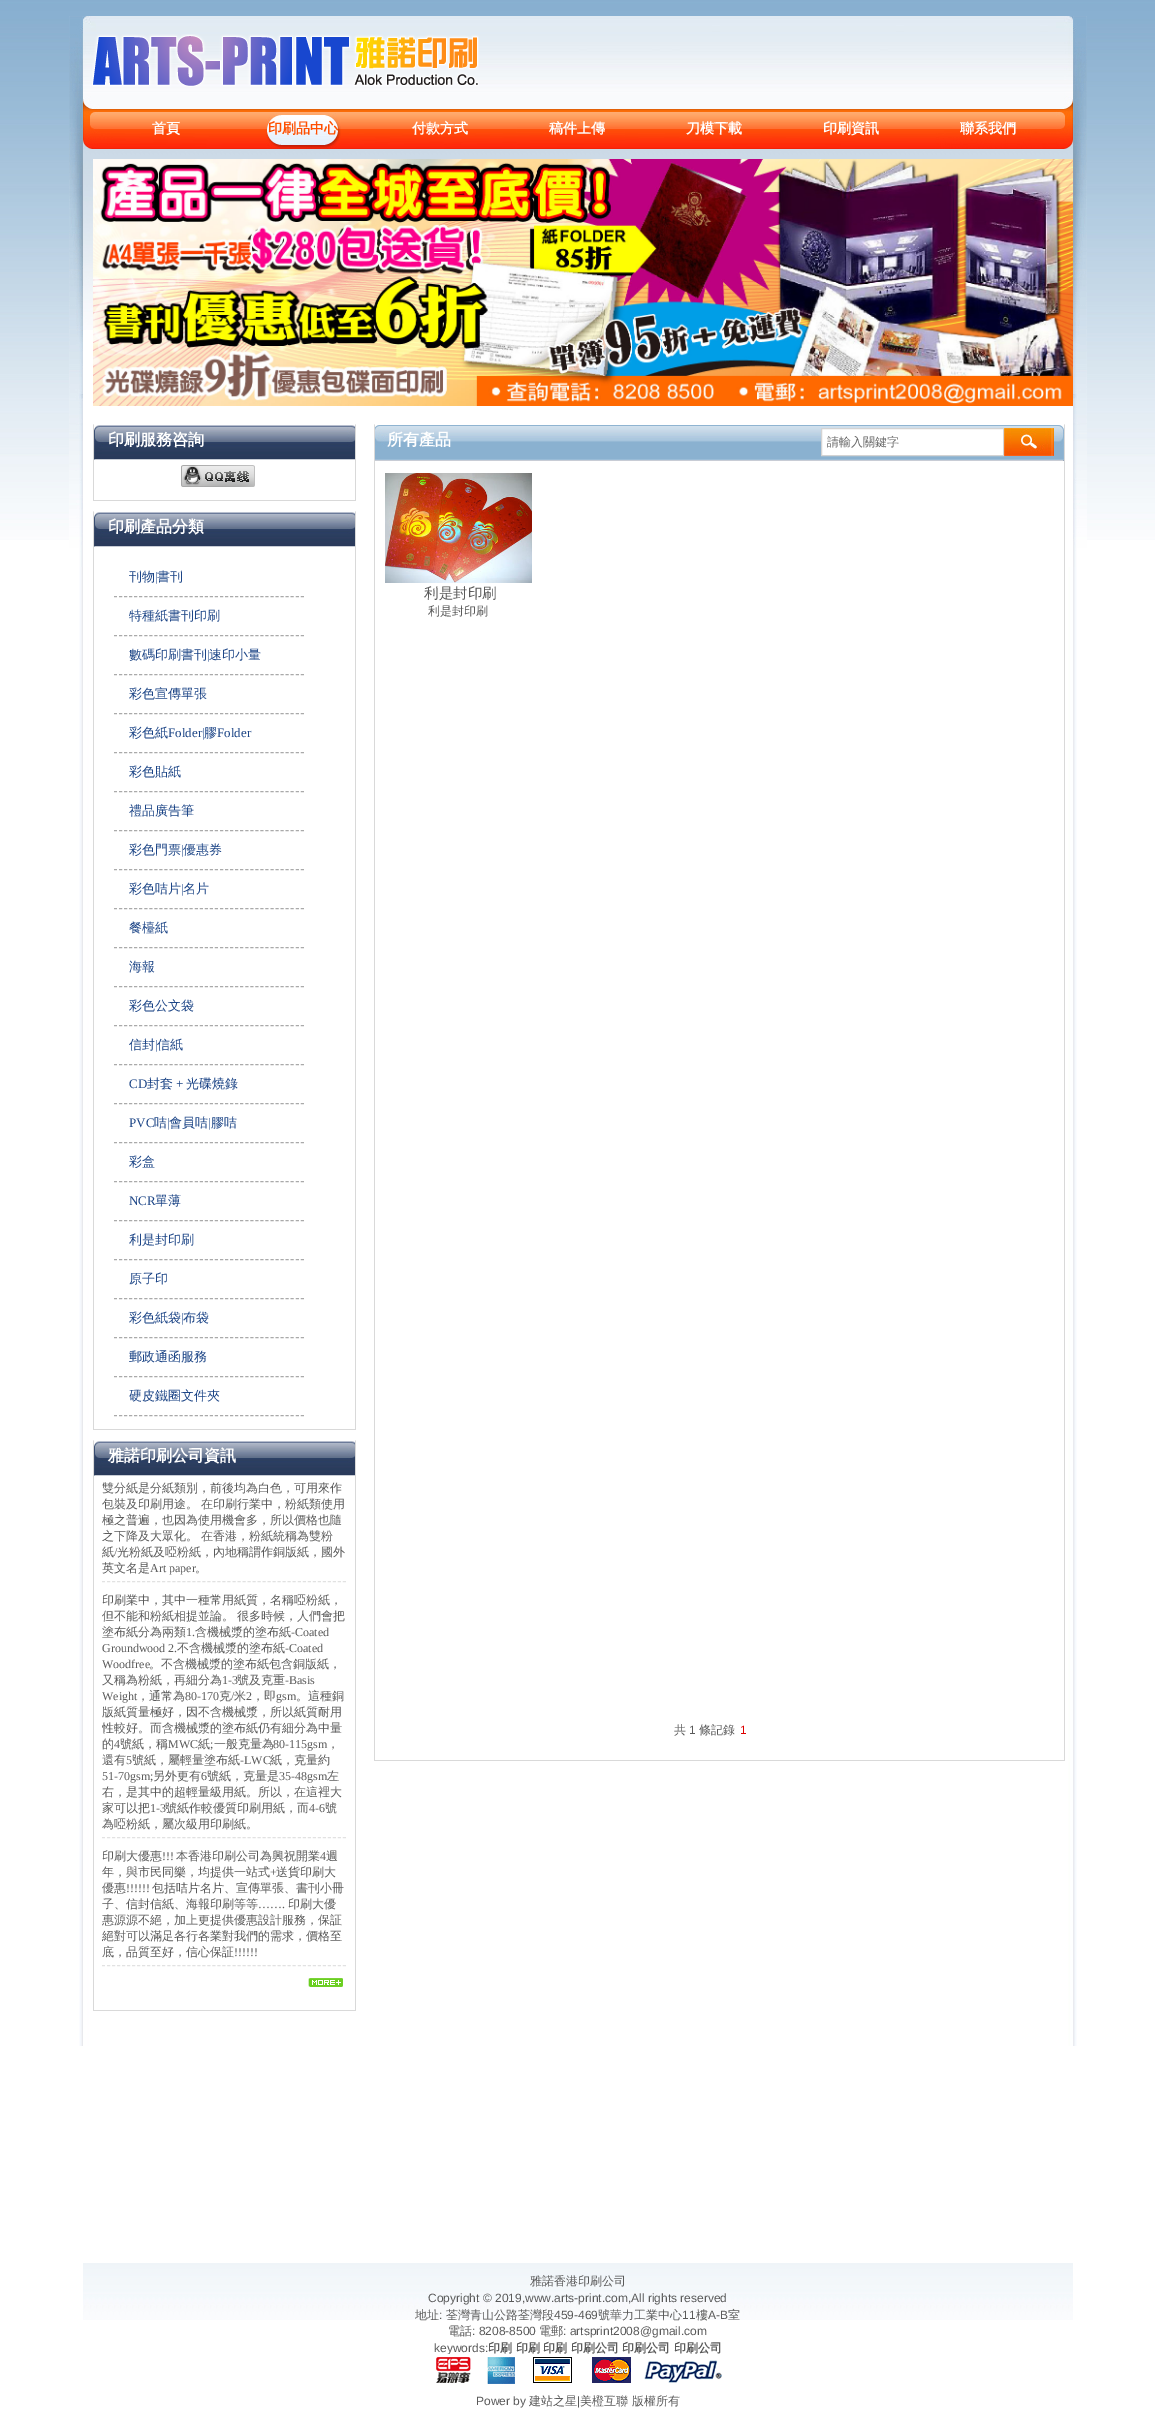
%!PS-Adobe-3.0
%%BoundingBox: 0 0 1155 2423
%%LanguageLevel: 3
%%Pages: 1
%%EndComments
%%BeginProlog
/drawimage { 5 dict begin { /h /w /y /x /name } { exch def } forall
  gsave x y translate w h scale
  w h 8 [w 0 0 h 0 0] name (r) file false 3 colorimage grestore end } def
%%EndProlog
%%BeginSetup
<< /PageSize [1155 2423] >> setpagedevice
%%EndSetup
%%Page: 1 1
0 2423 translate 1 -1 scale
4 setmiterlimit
1 setgray
0 0 1155 2423 rectfill
(images/1.raw) 0 0 1155 540 drawimage
(images/2.raw) 69 16 1018 551 drawimage
(images/3.raw) 83 16 990 93 drawimage
(images/4.raw) 92 34 387 53 drawimage
(images/5.raw) 83 109 990 40 drawimage
(images/6.raw) 266 113 75 36 drawimage
(images/7.raw) 83 149 990 181 drawimage
(images/8.raw) 93 159 980 247 drawimage
(images/9.raw) 94 425 261 35 drawimage
0.851 setgray
newpath 356 424 moveto 356 501 lineto 355 500 lineto 355 425 lineto closepath fill
93 500 263 1 rectfill
newpath 93 501 moveto 93 424 lineto 94 425 lineto 94 500 lineto closepath fill
(images/10.raw) 181 465 74 22 drawimage
(images/9.raw) 94 512 261 35 drawimage
(images/12.raw) 79 567 998 1479 drawimage
newpath 356 511 moveto 356 1430 lineto 355 1429 lineto 355 512 lineto closepath fill
93 1429 263 1 rectfill
newpath 93 1430 moveto 93 511 lineto 94 512 lineto 94 1429 lineto closepath fill
0.667 setgray
[3 2.05] 0 setdash
newpath 114 596.5 moveto 304 596.5 lineto stroke
newpath 114 635.5 moveto 304 635.5 lineto stroke
newpath 114 674.5 moveto 304 674.5 lineto stroke
newpath 114 713.5 moveto 304 713.5 lineto stroke
newpath 114 752.5 moveto 304 752.5 lineto stroke
newpath 114 791.5 moveto 304 791.5 lineto stroke
newpath 114 830.5 moveto 304 830.5 lineto stroke
newpath 114 869.5 moveto 304 869.5 lineto stroke
newpath 114 908.5 moveto 304 908.5 lineto stroke
newpath 114 947.5 moveto 304 947.5 lineto stroke
newpath 114 986.5 moveto 304 986.5 lineto stroke
newpath 114 1025.5 moveto 304 1025.5 lineto stroke
newpath 114 1064.5 moveto 304 1064.5 lineto stroke
newpath 114 1103.5 moveto 304 1103.5 lineto stroke
newpath 114 1142.5 moveto 304 1142.5 lineto stroke
newpath 114 1181.5 moveto 304 1181.5 lineto stroke
newpath 114 1220.5 moveto 304 1220.5 lineto stroke
newpath 114 1259.5 moveto 304 1259.5 lineto stroke
newpath 114 1298.5 moveto 304 1298.5 lineto stroke
newpath 114 1337.5 moveto 304 1337.5 lineto stroke
newpath 114 1376.5 moveto 304 1376.5 lineto stroke
newpath 114 1415.5 moveto 304 1415.5 lineto stroke
(images/9.raw) 94 1441 261 35 drawimage
0.851 setgray
newpath 356 1440 moveto 356 2011 lineto 355 2010 lineto 355 1441 lineto closepath fill
93 2010 263 1 rectfill
newpath 93 2011 moveto 93 1440 lineto 94 1441 lineto 94 2010 lineto closepath fill
0.886 setgray
[3 2.02] 0 setdash
newpath 102 1581.5 moveto 346 1581.5 lineto stroke
newpath 102 1837.5 moveto 346 1837.5 lineto stroke
newpath 102 1965.5 moveto 346 1965.5 lineto stroke
(images/11.raw) 308 1978 35 9 drawimage
(images/13.raw) 375 425 689 36 drawimage
0.851 setgray
newpath 1065 424 moveto 1065 1761 lineto 1064 1760 lineto 1064 425 lineto closepath fill
374 1760 691 1 rectfill
newpath 374 1761 moveto 374 424 lineto 375 425 lineto 375 1760 lineto closepath fill
1 setgray
newpath 821.5 428.5 moveto 1003.5 428.5 lineto 1003.5 455.5 lineto 821.5 455.5 lineto closepath gsave fill grestore
0.827 setgray
[] 0 setdash
stroke
(images/14.raw) 1004 428 50 28 drawimage
(images/15.raw) 385 473 147 110 drawimage
(images/16.raw) 83 2263 990 57 drawimage
/WenQuanYiZenHei-Bold [14 0 0 -14 0 0] selectfont
1 setgray
152 133 moveto (首頁) show
1 0.31 0 setrgbcolor
268 133 moveto (印刷品中心) show
1 setgray
412 133 moveto (付款方式) show
549 133 moveto (稿件上傳) show
686 133 moveto (刀模下載) show
823 133 moveto (印刷資訊) show
960 133 moveto (聯系我們) show
/WenQuanYiZenHei-Bold [16 0 0 -16 0 0] selectfont
108 445 moveto (印刷服務咨詢) show
108 532 moveto (印刷產品分類) show
/WenQuanYiZenHei-Medium [13 0 0 -13 0 0] selectfont
0.11 0.271 0.529 setrgbcolor
129 581 moveto (刊物) show
/LiberationSerif-Regular [13 0 0 -13 0 0] selectfont
155 581 moveto (|) show
/WenQuanYiZenHei-Medium [13 0 0 -13 0 0] selectfont
157 581 moveto (書刊) show
129 620 moveto (特種紙書刊印刷) show
129 659 moveto (數碼印刷書刊) show
/LiberationSerif-Regular [13 0 0 -13 0 0] selectfont
207 659 moveto (|) show
/WenQuanYiZenHei-Medium [13 0 0 -13 0 0] selectfont
209 659 moveto (速印小量) show
129 698 moveto (彩色宣傳單張) show
129 737 moveto (彩色紙) show
/LiberationSerif-Regular [13 0 0 -13 0 0] selectfont
168 737 moveto (Folder|) show
/WenQuanYiZenHei-Medium [13 0 0 -13 0 0] selectfont
204 737 moveto (膠) show
/LiberationSerif-Regular [13 0 0 -13 0 0] selectfont
217 737 moveto (Folder) show
/WenQuanYiZenHei-Medium [13 0 0 -13 0 0] selectfont
129 776 moveto (彩色貼紙) show
129 815 moveto (禮品廣告筆) show
129 854 moveto (彩色門票) show
/LiberationSerif-Regular [13 0 0 -13 0 0] selectfont
181 854 moveto (|) show
/WenQuanYiZenHei-Medium [13 0 0 -13 0 0] selectfont
183 854 moveto (優惠券) show
129 893 moveto (彩色咭片) show
/LiberationSerif-Regular [13 0 0 -13 0 0] selectfont
181 893 moveto (|) show
/WenQuanYiZenHei-Medium [13 0 0 -13 0 0] selectfont
183 893 moveto (名片) show
129 932 moveto (餐檯紙) show
129 971 moveto (海報) show
129 1010 moveto (彩色公文袋) show
129 1049 moveto (信封) show
/LiberationSerif-Regular [13 0 0 -13 0 0] selectfont
155 1049 moveto (|) show
/WenQuanYiZenHei-Medium [13 0 0 -13 0 0] selectfont
157 1049 moveto (信紙) show
/LiberationSerif-Regular [13 0 0 -13 0 0] selectfont
129 1088 moveto (CD) show
/WenQuanYiZenHei-Medium [13 0 0 -13 0 0] selectfont
147 1088 moveto (封套) show
/LiberationSerif-Regular [13 0 0 -13 0 0] selectfont
176 1088 moveto (+) show
/WenQuanYiZenHei-Medium [13 0 0 -13 0 0] selectfont
186 1088 moveto (光碟燒錄) show
/LiberationSerif-Regular [13 0 0 -13 0 0] selectfont
129 1127 moveto (PVC) show
/WenQuanYiZenHei-Medium [13 0 0 -13 0 0] selectfont
154 1127 moveto (咭) show
/LiberationSerif-Regular [13 0 0 -13 0 0] selectfont
167 1127 moveto (|) show
/WenQuanYiZenHei-Medium [13 0 0 -13 0 0] selectfont
169 1127 moveto (會員咭) show
/LiberationSerif-Regular [13 0 0 -13 0 0] selectfont
208 1127 moveto (|) show
/WenQuanYiZenHei-Medium [13 0 0 -13 0 0] selectfont
211 1127 moveto (膠咭) show
129 1166 moveto (彩盒) show
/LiberationSerif-Regular [13 0 0 -13 0 0] selectfont
129 1205 moveto (NCR) show
/WenQuanYiZenHei-Medium [13 0 0 -13 0 0] selectfont
155 1205 moveto (單薄) show
129 1244 moveto (利是封印刷) show
129 1283 moveto (原子印) show
129 1322 moveto (彩色紙袋) show
/LiberationSerif-Regular [13 0 0 -13 0 0] selectfont
181 1322 moveto (|) show
/WenQuanYiZenHei-Medium [13 0 0 -13 0 0] selectfont
183 1322 moveto (布袋) show
129 1361 moveto (郵政通函服務) show
129 1400 moveto (硬皮鐵圈文件夾) show
/WenQuanYiZenHei-Bold [16 0 0 -16 0 0] selectfont
1 setgray
108 1461 moveto (雅諾印刷公司資訊) show
/WenQuanYiZenHei-Medium [12 0 0 -12 0 0] selectfont
0.353 setgray
102 1492 moveto (雙分紙是分紙類別，前後均為白色，可用來作) show
102 1508 moveto -1 0 32 (包裝及印刷用途。 在印刷行業中，粉紙類使用) widthshow
102 1524 moveto (極之普遍，也因為使用機會多，所以價格也隨) show
102 1540 moveto -1 0 32 (之下降及大眾化。 在香港，粉紙統稱為雙粉) widthshow
gsave
102 1480 244 512 rectclip
102 1556 moveto (紙) show
grestore
/LiberationSerif-Regular [12 0 0 -12 0 0] selectfont
114 1556 moveto (/) show
/WenQuanYiZenHei-Medium [12 0 0 -12 0 0] selectfont
117 1556 moveto (光粉紙及啞粉紙，內地稱謂作銅版紙，國外) show
102 1572 moveto (英文名是) show
/LiberationSerif-Regular [12 0 0 -12 0 0] selectfont
150 1572 moveto (Art paper) show
/WenQuanYiZenHei-Medium [12 0 0 -12 0 0] selectfont
195 1572 moveto (。) show
102 1604 moveto (印刷業中，其中一種常用紙質，名稱啞粉紙，) show
102 1620 moveto -1 0 32 (但不能和粉紙相提並論。 很多時候，人們會把) widthshow
102 1636 moveto (塗布紙分為兩類) show
/LiberationSerif-Regular [12 0 0 -12 0 0] selectfont
186 1636 moveto (1.) show
/WenQuanYiZenHei-Medium [12 0 0 -12 0 0] selectfont
195 1636 moveto (含機械漿的塗布紙) show
/LiberationSerif-Regular [12 0 0 -12 0 0] selectfont
291 1636 moveto (-Coated) show
102 1652 moveto (Groundwood 2.) show
/WenQuanYiZenHei-Medium [12 0 0 -12 0 0] selectfont
177 1652 moveto (不含機械漿的塗布紙) show
/LiberationSerif-Regular [12 0 0 -12 0 0] selectfont
285 1652 moveto (-Coated) show
102 1668 moveto (Woodfree) show
/WenQuanYiZenHei-Medium [12 0 0 -12 0 0] selectfont
149 1668 moveto (。不含機械漿的塗布紙包含銅版紙，) show
102 1684 moveto (又稱為粉紙，再細分為) show
/LiberationSerif-Regular [12 0 0 -12 0 0] selectfont
222 1684 moveto (1-3) show
/WenQuanYiZenHei-Medium [12 0 0 -12 0 0] selectfont
237 1684 moveto (號及克重) show
/LiberationSerif-Regular [12 0 0 -12 0 0] selectfont
285 1684 moveto (-Basis) show
102 1700 moveto (Weight) show
/WenQuanYiZenHei-Medium [12 0 0 -12 0 0] selectfont
137 1700 moveto (，通常為) show
/LiberationSerif-Regular [12 0 0 -12 0 0] selectfont
185 1700 moveto (80-170) show
/WenQuanYiZenHei-Medium [12 0 0 -12 0 0] selectfont
219 1700 moveto (克) show
/LiberationSerif-Regular [12 0 0 -12 0 0] selectfont
231 1700 moveto (/) show
/WenQuanYiZenHei-Medium [12 0 0 -12 0 0] selectfont
234 1700 moveto (米) show
/LiberationSerif-Regular [12 0 0 -12 0 0] selectfont
246 1700 moveto (2) show
/WenQuanYiZenHei-Medium [12 0 0 -12 0 0] selectfont
252 1700 moveto (，即) show
/LiberationSerif-Regular [12 0 0 -12 0 0] selectfont
276 1700 moveto (gsm) show
/WenQuanYiZenHei-Medium [12 0 0 -12 0 0] selectfont
296 1700 moveto (。這種銅) show
102 1716 moveto (版紙質量極好，因不含機械漿，所以紙質耐用) show
gsave
102 1480 244 512 rectclip
102 1732 moveto (性較好。而含機械漿的塗布紙仍有細分為中量) show
grestore
102 1748 moveto (的) show
/LiberationSerif-Regular [12 0 0 -12 0 0] selectfont
114 1748 moveto (4) show
/WenQuanYiZenHei-Medium [12 0 0 -12 0 0] selectfont
120 1748 moveto (號紙，稱) show
/LiberationSerif-Regular [12 0 0 -12 0 0] selectfont
168 1748 moveto (MWC) show
/WenQuanYiZenHei-Medium [12 0 0 -12 0 0] selectfont
198 1748 moveto (紙 一般克量為) show
/LiberationSerif-Regular [12 0 0 -12 0 0] selectfont
273 1748 moveto (80-115gsm) show
210 1748 moveto (;) show
/WenQuanYiZenHei-Medium [12 0 0 -12 0 0] selectfont
327 1748 moveto (，) show
102 1764 moveto (還有) show
/LiberationSerif-Regular [12 0 0 -12 0 0] selectfont
126 1764 moveto (5) show
/WenQuanYiZenHei-Medium [12 0 0 -12 0 0] selectfont
132 1764 moveto (號紙，屬輕量塗布紙) show
/LiberationSerif-Regular [12 0 0 -12 0 0] selectfont
240 1764 moveto (-LWC) show
/WenQuanYiZenHei-Medium [12 0 0 -12 0 0] selectfont
270 1764 moveto (紙，克量約) show
/LiberationSerif-Regular [12 0 0 -12 0 0] selectfont
102 1780 moveto (51-70gsm;) show
/WenQuanYiZenHei-Medium [12 0 0 -12 0 0] selectfont
153 1780 moveto (另外更有) show
/LiberationSerif-Regular [12 0 0 -12 0 0] selectfont
201 1780 moveto (6) show
/WenQuanYiZenHei-Medium [12 0 0 -12 0 0] selectfont
207 1780 moveto (號紙，克量是) show
/LiberationSerif-Regular [12 0 0 -12 0 0] selectfont
279 1780 moveto (35-48gsm) show
/WenQuanYiZenHei-Medium [12 0 0 -12 0 0] selectfont
327 1780 moveto (左) show
102 1796 moveto (右，是其中的超輕量級用紙。所以，在這裡大) show
102 1812 moveto (家可以把) show
/LiberationSerif-Regular [12 0 0 -12 0 0] selectfont
150 1812 moveto (1-3) show
/WenQuanYiZenHei-Medium [12 0 0 -12 0 0] selectfont
165 1812 moveto (號紙作較優質印刷用紙，而) show
/LiberationSerif-Regular [12 0 0 -12 0 0] selectfont
309 1812 moveto (4-6) show
/WenQuanYiZenHei-Medium [12 0 0 -12 0 0] selectfont
325 1812 moveto (號) show
102 1828 moveto (為啞粉紙，屬次級用印刷紙。) show
102 1860 moveto (印刷大優惠) show
/LiberationSerif-Regular [12 0 0 -12 0 0] selectfont
162 1860 moveto (!!!) show
/WenQuanYiZenHei-Medium [12 0 0 -12 0 0] selectfont
176 1860 moveto (本香港印刷公司為興祝開業) show
/LiberationSerif-Regular [12 0 0 -12 0 0] selectfont
320 1860 moveto (4) show
/WenQuanYiZenHei-Medium [12 0 0 -12 0 0] selectfont
326 1860 moveto (週) show
102 1876 moveto (年，與市民同樂，均提供一站式) show
/LiberationSerif-Regular [12 0 0 -12 0 0] selectfont
270 1876 moveto (+) show
/WenQuanYiZenHei-Medium [12 0 0 -12 0 0] selectfont
276 1876 moveto (送貨印刷大) show
102 1892 moveto (優惠) show
/LiberationSerif-Regular [12 0 0 -12 0 0] selectfont
126 1892 moveto (!!!!!!) show
/WenQuanYiZenHei-Medium [12 0 0 -12 0 0] selectfont
152 1892 moveto (包括咭片名片、宣傳單張、書刊小冊) show
102 1908 moveto (子、信封信紙、海報印刷等等) show
/LiberationSerif-Regular [12 0 0 -12 0 0] selectfont
258 1908 moveto (…….) show
/WenQuanYiZenHei-Medium [12 0 0 -12 0 0] selectfont
288 1908 moveto (印刷大優) show
gsave
102 1480 244 512 rectclip
102 1924 moveto (惠源源不絕，加上更提供優惠設計服務，保証) show
102 1940 moveto (絕對可以滿足各行各業對我們的需求，價格至) show
grestore
102 1956 moveto (底，品質至好，信心保証) show
/LiberationSerif-Regular [12 0 0 -12 0 0] selectfont
234 1956 moveto (!!!!!!) show
/WenQuanYiZenHei-Bold [16 0 0 -16 0 0] selectfont
1 setgray
387 445 moveto (所有產品) show
gsave
827 429 171 26 rectclip
/WenQuanYiZenHei-Medium [12 0 0 -12 0 0] selectfont
0.4 setgray
827 446 moveto (請輸入關鍵字) show
grestore
/WenQuanYiZenHei-Medium [14.5 0 0 -14.5 0 0] selectfont
0.353 setgray
424 598 moveto (利是封印刷) show
/WenQuanYiZenHei-Medium [12 0 0 -12 0 0] selectfont
428 615 moveto (利是封印刷) show
674 1734 moveto (共) show
/LiberationSans-Regular [12 0 0 -12 0 0] selectfont
689 1734 moveto (1) show
/WenQuanYiZenHei-Medium [12 0 0 -12 0 0] selectfont
699 1734 moveto (條記錄) show
/LiberationSans-Regular [12 0 0 -12 0 0] selectfont
0.867 0 0 setrgbcolor
740 1734 moveto (1) show
/WenQuanYiZenHei-Medium [12 0 0 -12 0 0] selectfont
0.353 setgray
530 2285 moveto (雅諾香港印刷公司) show
/LiberationSans-Regular [12 0 0 -12 0 0] selectfont
428 2302 moveto (Copyright © 2019,www.arts-print.com,All rights reserved) show
/WenQuanYiZenHei-Medium [12 0 0 -12 0 0] selectfont
415 2319 moveto (地址) show
/LiberationSans-Regular [12 0 0 -12 0 0] selectfont
439 2319 moveto (:) show
/WenQuanYiZenHei-Medium [12 0 0 -12 0 0] selectfont
446 2319 moveto (荃灣青山公路荃灣段) show
/LiberationSans-Regular [12 0 0 -12 0 0] selectfont
554 2319 moveto (459-469) show
/WenQuanYiZenHei-Medium [12 0 0 -12 0 0] selectfont
598 2319 moveto (號華力工業中心) show
/LiberationSans-Regular [12 0 0 -12 0 0] selectfont
682 2319 moveto (11) show
/WenQuanYiZenHei-Medium [12 0 0 -12 0 0] selectfont
696 2319 moveto (樓) show
/LiberationSans-Regular [12 0 0 -12 0 0] selectfont
708 2319 moveto (A-B) show
/WenQuanYiZenHei-Medium [12 0 0 -12 0 0] selectfont
728 2319 moveto (室) show
448 2335 moveto (電話) show
/LiberationSans-Regular [12 0 0 -12 0 0] selectfont
472 2335 moveto (: 8208-8500) show
/WenQuanYiZenHei-Medium [12 0 0 -12 0 0] selectfont
539 2335 moveto (電郵) show
/LiberationSans-Regular [12 0 0 -12 0 0] selectfont
563 2335 moveto (: artsprint2008@gmail.com) show
434 2352 moveto (keywords:) show
/WenQuanYiZenHei-Bold [12 0 0 -12 0 0] selectfont
488 2352 moveto (印刷 印刷 印刷 印刷公司 印刷公司 印刷公司) show
(images/17.raw) 436 2354 286 30 drawimage
/LiberationSans-Regular [12 0 0 -12 0 0] selectfont
476 2405 moveto (Power by) show
/WenQuanYiZenHei-Medium [12 0 0 -12 0 0] selectfont
529 2405 moveto (建站之星) show
/LiberationSans-Regular [12 0 0 -12 0 0] selectfont
577 2405 moveto (|) show
/WenQuanYiZenHei-Medium [12 0 0 -12 0 0] selectfont
580 2405 moveto (美橙互聯 版權所有) show
showpage
%%EOF
